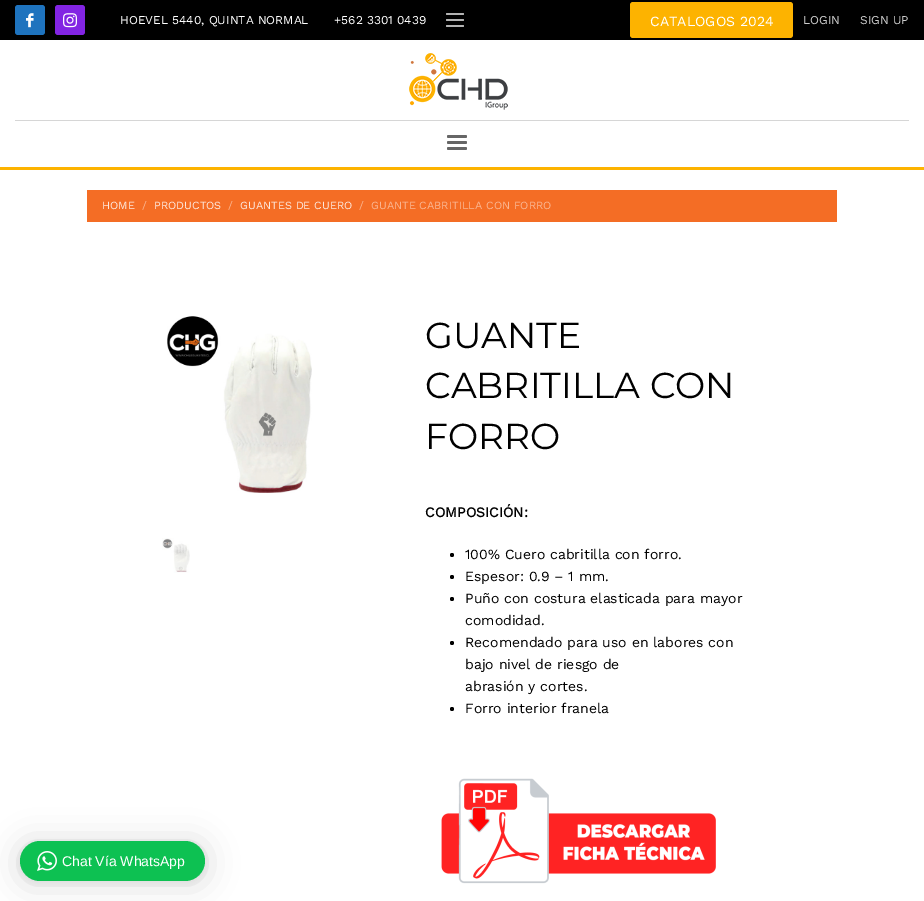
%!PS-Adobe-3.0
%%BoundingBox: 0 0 924 901
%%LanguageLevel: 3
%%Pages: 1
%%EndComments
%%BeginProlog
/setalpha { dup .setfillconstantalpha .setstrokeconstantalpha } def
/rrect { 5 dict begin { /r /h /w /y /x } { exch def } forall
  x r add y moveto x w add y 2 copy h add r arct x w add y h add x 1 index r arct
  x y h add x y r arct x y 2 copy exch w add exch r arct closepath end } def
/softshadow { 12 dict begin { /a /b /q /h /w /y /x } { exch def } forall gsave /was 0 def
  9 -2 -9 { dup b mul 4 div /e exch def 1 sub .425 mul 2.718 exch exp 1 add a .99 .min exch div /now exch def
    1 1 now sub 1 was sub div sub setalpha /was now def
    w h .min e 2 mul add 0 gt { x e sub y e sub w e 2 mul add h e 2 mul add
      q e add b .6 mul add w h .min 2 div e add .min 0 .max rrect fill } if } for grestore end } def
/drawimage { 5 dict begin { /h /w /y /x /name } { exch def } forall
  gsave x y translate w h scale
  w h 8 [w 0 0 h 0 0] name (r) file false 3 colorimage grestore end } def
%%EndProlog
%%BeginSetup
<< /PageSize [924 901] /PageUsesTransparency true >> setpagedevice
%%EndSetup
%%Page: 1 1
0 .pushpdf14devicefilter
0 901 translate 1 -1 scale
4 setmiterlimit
1 setgray
0 0 924 901 rectfill
0.992 0.702 0 setrgbcolor
0 167 924 3 rectfill
0 setgray
0 0 924 40 rectfill
0.118 0.451 0.745 setrgbcolor
15 5 30 30 3 rrect fill
(images/1.raw) 26 13 8 15 drawimage
0.51 0.141 0.89 setrgbcolor
55 5 30 30 3 rrect fill
(images/2.raw) 63 13 14 15 drawimage
0.702 setgray
446 25 18 2 1 rrect fill
446 19 18 2 1 rrect fill
446 13 18 2 1 rrect fill
0.992 0.702 0 setrgbcolor
630 2 163 36 3 rrect fill
(images/3.raw) 409 53 99 57 drawimage
0.839 setgray
15 120 894 1 rectfill
0.4 setgray
447 135 20 3 1.5 rrect fill
447 141 20 3 1.5 rrect fill
447 147 20 3 1.5 rrect fill
0.957 0.427 0.145 setrgbcolor
87 190 750 32 rectfill
(images/4.raw) 167 316 145 177 drawimage
(images/5.raw) 162 538 28 35 drawimage
0 setgray
newpath 452 555 2 0 360 arc closepath fill
newpath 452 577 2 0 360 arc closepath fill
newpath 452 599 2 0 360 arc closepath fill
newpath 452 643 2 0 360 arc closepath fill
newpath 452 709 2 0 360 arc closepath fill
(images/6.raw) 441 778 275 106 drawimage
20 843 185 40 20 16 0.16 softshadow
20 842 185 40 20 3 0.06 softshadow
0.051 0.757 0.322 setrgbcolor
20 841 185 40 20 rrect fill
(images/7.raw) 37 851 20 20 drawimage
/WorkSans-Regular [12 0 0 -12 0 0] selectfont
1 setgray
120 24 moveto (HOEVEL 5440, QUINTA NORMAL) show
334 24 moveto (+562 3301 0439) show
/WorkSans-Regular [14 0 0 -14 0 0] selectfont
650 26 moveto (CATALOGOS 2024) show
/WorkSans-Regular [12 0 0 -12 0 0] selectfont
0.8 setgray
803 24 moveto (LOGIN) show
860 24 moveto (SIGN UP) show
/WorkSans-Regular [11 0 0 -11 0 0] selectfont
0.992 0.914 0.871 setrgbcolor
102 209 moveto (HOME) show
0.98 0.714 0.573 setrgbcolor
142 209 moveto (/) show
0.992 0.914 0.871 setrgbcolor
154 209 moveto (PRODUCTOS) show
0.98 0.714 0.573 setrgbcolor
228 209 moveto (/) show
0.992 0.914 0.871 setrgbcolor
240 209 moveto (GUANTES DE CUERO) show
0.98 0.714 0.573 setrgbcolor
359 209 moveto (/) show
371 209 moveto (GUANTE CABRITILLA CON FORRO) show
/Montserrat-Regular [36 0 0 -36 0 0] selectfont
0 setgray
425 348 moveto (GUANTE) show
425 398 moveto (CABRITILLA CON) show
425 449 moveto (FORRO) show
/WorkSans-Bold [14 0 0 -14 0 0] selectfont
425 517 moveto (COMPOSICIÓN:) show
/WorkSans-Regular [14 0 0 -14 0 0] selectfont
465 559 moveto (100% Cuero cabritilla con forro.) show
465 581 moveto (Espesor: 0.9 – 1 mm.) show
465 603 moveto (Puño con costura elasticada para mayor) show
465 625 moveto (comodidad.) show
465 647 moveto (Recomendado para uso en labores con) show
465 669 moveto (bajo nivel de riesgo de) show
465 691 moveto (abrasión y cortes.) show
465 713 moveto (Forro interior franela) show
/LiberationSans-Regular [14 0 0 -14 0 0] selectfont
1 setgray
62 866 moveto (Chat Vía WhatsApp) show
.poppdf14devicefilter showpage
%%EOF
